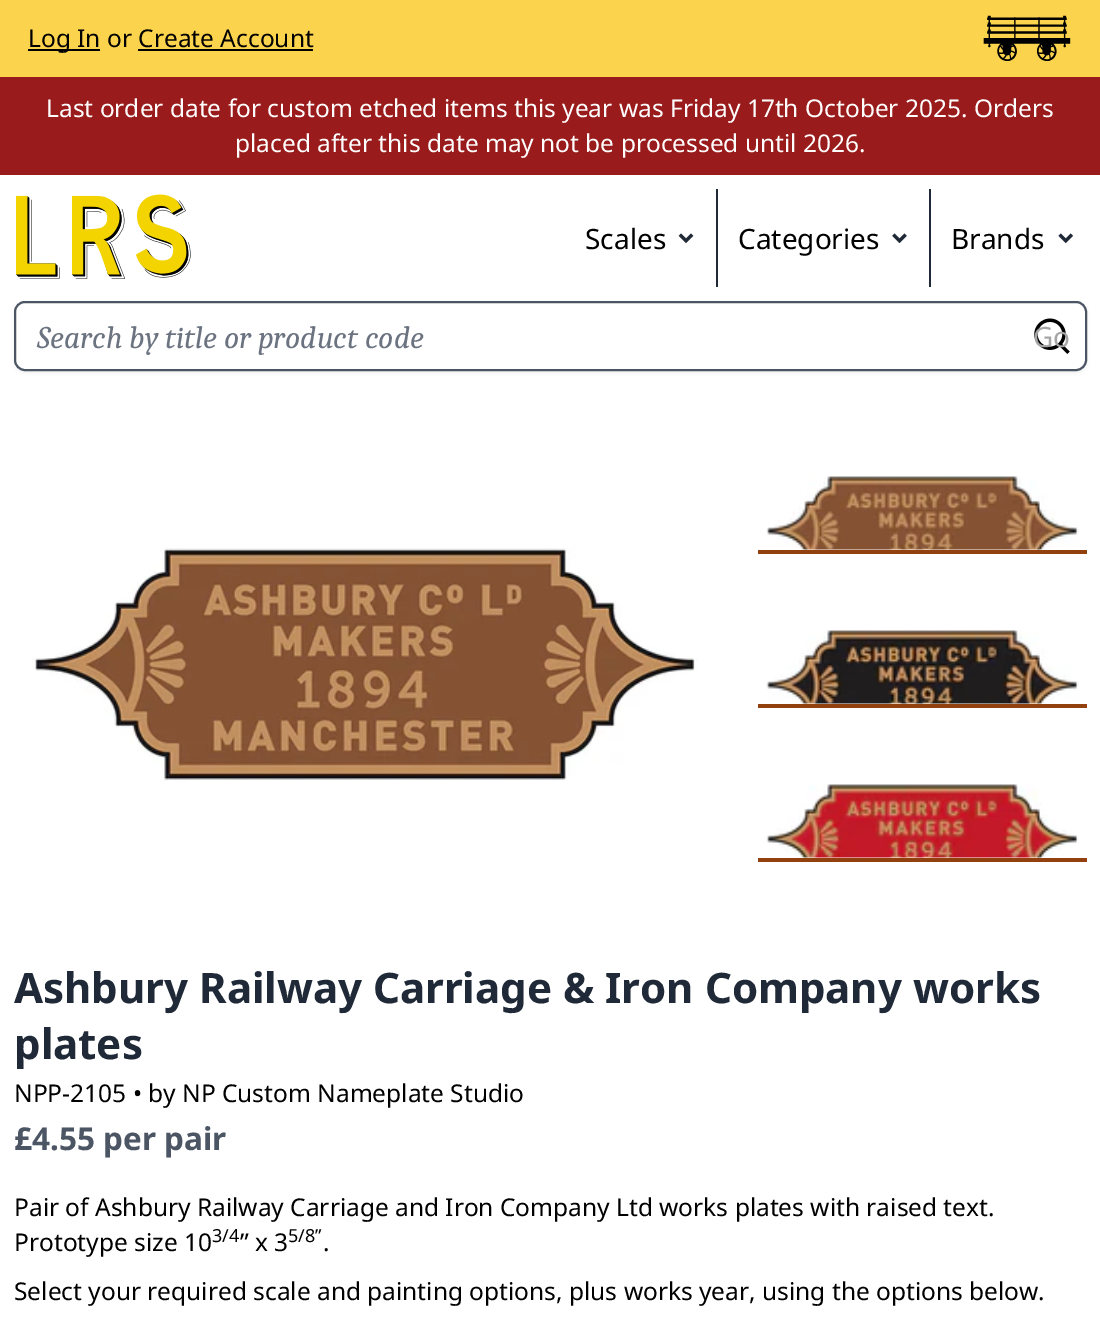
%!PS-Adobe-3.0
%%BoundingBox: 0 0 1100 1324
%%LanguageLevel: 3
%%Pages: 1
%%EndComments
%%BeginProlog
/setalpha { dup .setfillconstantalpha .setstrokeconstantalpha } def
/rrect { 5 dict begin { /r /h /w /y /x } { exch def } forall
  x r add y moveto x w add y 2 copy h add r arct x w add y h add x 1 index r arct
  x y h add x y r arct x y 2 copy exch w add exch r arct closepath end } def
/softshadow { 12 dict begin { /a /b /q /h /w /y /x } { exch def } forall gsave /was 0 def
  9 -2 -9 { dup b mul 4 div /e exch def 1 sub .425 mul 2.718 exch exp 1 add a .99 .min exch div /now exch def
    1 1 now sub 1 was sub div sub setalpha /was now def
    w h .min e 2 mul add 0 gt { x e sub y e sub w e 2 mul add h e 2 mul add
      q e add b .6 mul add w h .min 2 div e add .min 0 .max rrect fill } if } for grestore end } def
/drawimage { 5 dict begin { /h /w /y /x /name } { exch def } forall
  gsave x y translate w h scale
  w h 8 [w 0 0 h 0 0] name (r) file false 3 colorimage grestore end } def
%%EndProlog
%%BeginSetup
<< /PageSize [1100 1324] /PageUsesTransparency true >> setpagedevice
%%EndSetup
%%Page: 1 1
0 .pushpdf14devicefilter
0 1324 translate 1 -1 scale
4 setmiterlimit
0.988 0.827 0.302 setrgbcolor
0 0 1100 1324 rectfill
0 setgray
28 49 72 2 rectfill
138 49 175 2 rectfill
(images/1.raw) 983 15 88 46 drawimage
0.6 0.106 0.106 setrgbcolor
0 77 1100 98 rectfill
1 setgray
0 175 1100 1149 rectfill
(images/2.raw) 16 194 175 85 drawimage
(images/3.raw) 678 233 16 11 drawimage
0.122 0.161 0.216 setrgbcolor
716 189 2 98 rectfill
(images/4.raw) 892 233 15 11 drawimage
929 189 2 98 rectfill
(images/5.raw) 1058 233 16 11 drawimage
0 setgray
14 303 1073 70 11 2 0.05 softshadow
1 setgray
15 302 1071 68 10 rrect gsave fill grestore
0.294 0.333 0.388 setrgbcolor
2 setlinewidth
stroke
(images/6.raw) 1034 318 36 36 drawimage
(images/7.raw) 32 548 666 233 drawimage
0.573 0.251 0.055 setrgbcolor
758 550 329 4 rectfill
(images/8.raw) 766 475 313 75 drawimage
758 704 329 4 rectfill
(images/9.raw) 766 630 313 74 drawimage
758 858 329 4 rectfill
(images/10.raw) 766 784 313 74 drawimage
/NotoSans-Regular [24.5 0 0 -24.5 0 0] selectfont
0 setgray
28 47 moveto (Log In or Create Account) show
1 setgray
46 117 moveto (Last order date for custom etched items this year was Friday 17th October 2025. Orders) show
235 152 moveto (placed after this date may not be processed until 2026.) show
/NotoSans-Regular [28 0 0 -28 0 0] selectfont
0 setgray
585 249 moveto (Scales) show
738 249 moveto (Categories) show
951 249 moveto (Brands) show
/Caladea-Italic [31.5 0 0 -31.5 0 0] selectfont
0.42 0.447 0.502 setrgbcolor
37 348 moveto (Search by title or product code) show
/NotoSans-Regular [28 0 0 -28 0 0] selectfont
0.651 setgray
1033 347 moveto (Go) show
/NotoSans-Bold [42 0 0 -42 0 0] selectfont
0.122 0.161 0.216 setrgbcolor
14 1003 moveto (Ashbury Railway Carriage & Iron Company works) show
14 1059 moveto (plates) show
/NotoSans-Regular [24.5 0 0 -24.5 0 0] selectfont
0 setgray
14 1102 moveto (NPP-2105 • by NP Custom Nameplate Studio) show
/NotoSans-Bold [31.5 0 0 -31.5 0 0] selectfont
0.294 0.333 0.388 setrgbcolor
14 1150 moveto (£4.55 per pair) show
/NotoSans-Regular [24.5 0 0 -24.5 0 0] selectfont
0 setgray
14 1216 moveto (Pair of Ashbury Railway Carriage and Iron Company Ltd works plates with raised text.) show
14 1251 moveto (Prototype size 10) show
/NotoSans-Regular [18 0 0 -18 0 0] selectfont
212 1242 moveto (3/4) show
/NotoSans-Regular [24.5 0 0 -24.5 0 0] selectfont
240 1251 moveto (” x 3) show
/NotoSans-Regular [18 0 0 -18 0 0] selectfont
288 1242 moveto (5/8”) show
/NotoSans-Regular [24.5 0 0 -24.5 0 0] selectfont
323 1251 moveto (.) show
14 1300 moveto (Select your required scale and painting options, plus works year, using the options below.) show
.poppdf14devicefilter showpage
%%EOF
